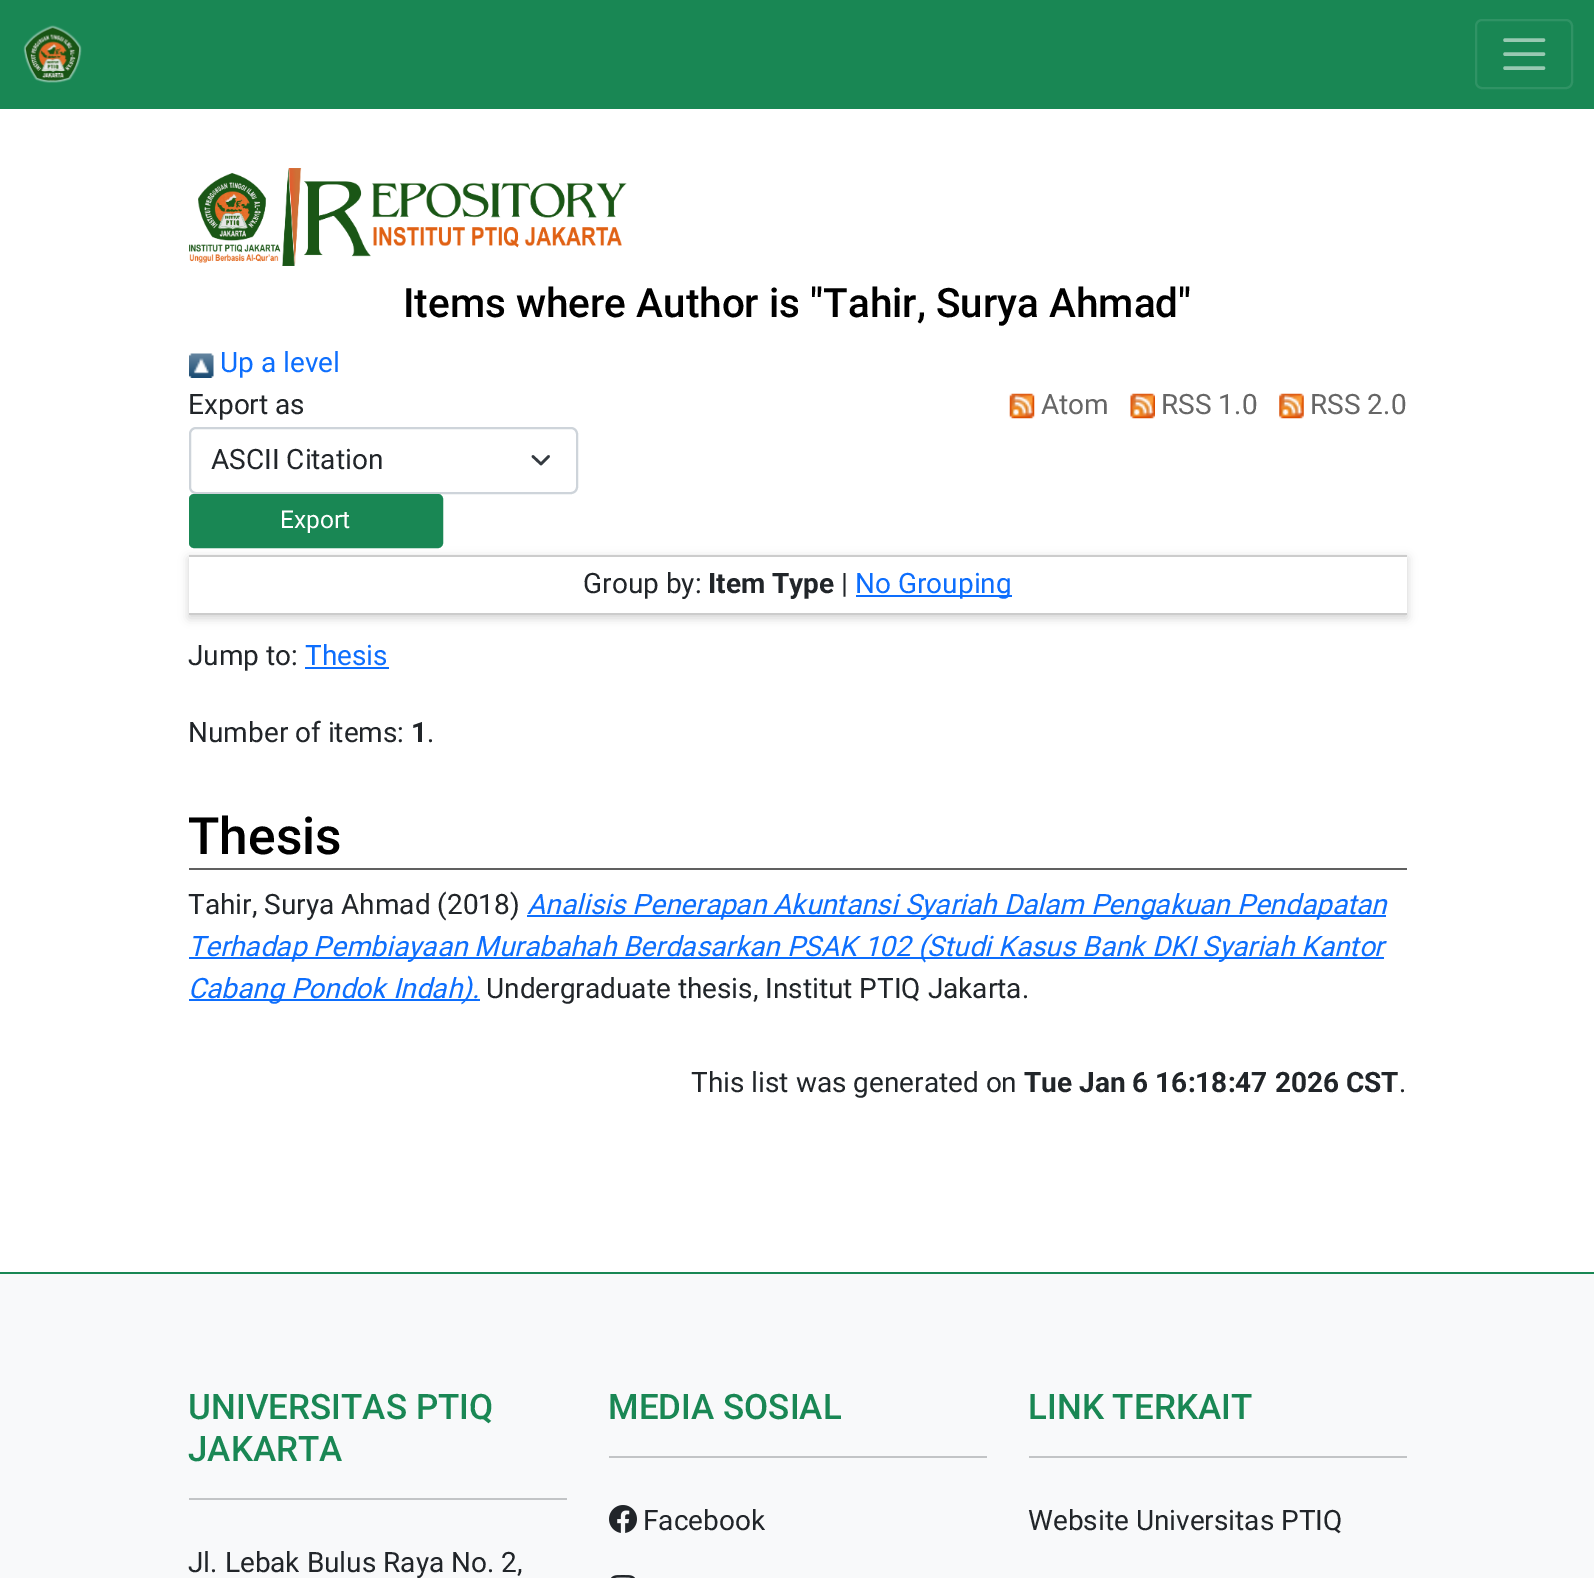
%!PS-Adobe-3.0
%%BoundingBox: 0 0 1594 1578
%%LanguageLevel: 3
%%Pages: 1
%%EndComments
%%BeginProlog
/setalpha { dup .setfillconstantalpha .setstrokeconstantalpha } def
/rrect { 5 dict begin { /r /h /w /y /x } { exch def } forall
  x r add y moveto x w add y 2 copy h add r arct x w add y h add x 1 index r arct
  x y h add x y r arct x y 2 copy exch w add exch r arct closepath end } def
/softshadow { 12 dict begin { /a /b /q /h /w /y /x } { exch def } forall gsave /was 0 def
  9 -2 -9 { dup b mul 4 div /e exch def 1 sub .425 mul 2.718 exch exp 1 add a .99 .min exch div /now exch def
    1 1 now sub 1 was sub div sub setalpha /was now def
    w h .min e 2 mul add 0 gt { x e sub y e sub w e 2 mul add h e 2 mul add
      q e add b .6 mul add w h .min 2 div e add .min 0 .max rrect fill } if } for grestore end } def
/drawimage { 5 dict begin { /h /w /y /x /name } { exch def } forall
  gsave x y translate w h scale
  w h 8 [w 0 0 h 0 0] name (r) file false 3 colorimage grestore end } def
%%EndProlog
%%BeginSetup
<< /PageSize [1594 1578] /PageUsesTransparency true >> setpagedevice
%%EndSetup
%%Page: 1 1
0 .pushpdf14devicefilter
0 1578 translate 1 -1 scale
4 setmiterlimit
1 setgray
0 0 1594 1578 rectfill
0.098 0.529 0.329 setrgbcolor
0 0 1594 109 rectfill
(images/1.raw) 23 25 59 58 drawimage
0.188 0.576 0.396 setrgbcolor
2 setlinewidth
1476 20 96 68 6 rrect stroke
0.596 0.788 0.698 setrgbcolor
3.5 setlinewidth
1 setlinecap
newpath 1505 40 moveto 1543.5 40 lineto 1505 54 moveto 1543.5 54 lineto 1505 68 moveto 1543.5 68 lineto stroke
(images/2.raw) 189 168 438 98 drawimage
(images/3.raw) 189 353 25 25 drawimage
0.204 0.227 0.251 setrgbcolor
2.6 setlinewidth
1 setlinejoin
newpath 533 456.5 moveto 541 464 lineto 548.5 456.5 lineto stroke
0.808 0.831 0.855 setrgbcolor
2 setlinewidth
0 setlinecap
0 setlinejoin
190 428 387 65 6 rrect stroke
gsave
newpath 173 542 moveto 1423 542 lineto 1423 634 lineto 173 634 lineto closepath 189 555 moveto 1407 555 lineto 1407 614 lineto 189 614 lineto closepath eoclip newpath
0.392 setgray
189 558 1218 60 0 5 0.3 softshadow
grestore
0.098 0.529 0.329 setrgbcolor
190 495 252 52 4 rrect gsave fill grestore
stroke
(images/4.raw) 1009 393 26 26 drawimage
(images/5.raw) 1130 393 25 26 drawimage
(images/6.raw) 1279 393 25 26 drawimage
0.8 setgray
189 555 1218 2 rectfill
189 613 1218 2 rectfill
0.051 0.431 0.992 setrgbcolor
856 595 156 2 rectfill
305 667 84 2 rectfill
0.376 setgray
189 868 1218 2 rectfill
0.051 0.431 0.992 setrgbcolor
527 915 859 2 rectfill
189 957 1195 2 rectfill
189 999 291 2 rectfill
0.973 0.976 0.98 setrgbcolor
0 1274 1594 304 rectfill
0.098 0.529 0.329 setrgbcolor
0 1272 1594 2 rectfill
0.761 0.769 0.776 setrgbcolor
189 1498 378 2 rectfill
609 1456 378 2 rectfill
(images/7.raw) 609 1505 28 28 drawimage
(images/8.raw) 611 1575 24 3 drawimage
1029 1456 378 2 rectfill
/Roboto-Medium [40.5 0 0 -40.5 0 0] selectfont
0 setgray
403 317 moveto (Items where Author is "Tahir, Surya Ahmad") show
/Roboto-Regular [28 0 0 -28 0 0] selectfont
0.051 0.431 0.992 setrgbcolor
220 372 moveto (Up a level) show
0.129 0.145 0.161 setrgbcolor
188 414 moveto (Export as) show
211 469 moveto (ASCII Citation) show
/Roboto-Regular [24.5 0 0 -24.5 0 0] selectfont
1 setgray
280 528 moveto (Export) show
/Roboto-Regular [28 0 0 -28 0 0] selectfont
0.4 setgray
1041 414 moveto (Atom) show
1161 414 moveto (RSS 1.0) show
1310 414 moveto (RSS 2.0) show
0.129 0.145 0.161 setrgbcolor
583 593 moveto (Group by:) show
/Roboto-Bold [28 0 0 -28 0 0] selectfont
708 593 moveto (Item Type) show
/Roboto-Regular [28 0 0 -28 0 0] selectfont
841 593 moveto (|) show
0.051 0.431 0.992 setrgbcolor
855 593 moveto (No Grouping) show
0.129 0.145 0.161 setrgbcolor
188 665 moveto (Jump to:) show
0.051 0.431 0.992 setrgbcolor
305 665 moveto (Thesis) show
0.129 0.145 0.161 setrgbcolor
188 742 moveto (Number of items:) show
/Roboto-Bold [28 0 0 -28 0 0] selectfont
411 742 moveto (1) show
/Roboto-Regular [28 0 0 -28 0 0] selectfont
427 742 moveto (.) show
/Roboto-Medium [51.5 0 0 -51.5 0 0] selectfont
0 setgray
188 854 moveto (Thesis) show
/Roboto-Regular [28 0 0 -28 0 0] selectfont
0.129 0.145 0.161 setrgbcolor
188 914 moveto (Tahir, Surya Ahmad \(2018\)) show
/Roboto-Italic [28 0 0 -28 0 0] selectfont
0.051 0.431 0.992 setrgbcolor
527 914 moveto (Analisis Penerapan Akuntansi Syariah Dalam Pengakuan Pendapatan) show
188 956 moveto (Terhadap Pembiayaan Murabahah Berdasarkan PSAK 102 \(Studi Kasus Bank DKI Syariah Kantor) show
188 998 moveto (Cabang Pondok Indah\).) show
/Roboto-Regular [28 0 0 -28 0 0] selectfont
0.129 0.145 0.161 setrgbcolor
486 998 moveto (Undergraduate thesis, Institut PTIQ Jakarta.) show
691 1092 moveto (This list was generated on) show
/Roboto-Bold [28 0 0 -28 0 0] selectfont
1024 1092 moveto (Tue Jan 6 16:18:47 2026 CST) show
/Roboto-Regular [28 0 0 -28 0 0] selectfont
1399 1092 moveto (.) show
/Roboto-Medium [35 0 0 -35 0 0] selectfont
0.098 0.529 0.329 setrgbcolor
188 1419 moveto (UNIVERSITAS PTIQ) show
188 1461 moveto (JAKARTA) show
/Roboto-Regular [28 0 0 -28 0 0] selectfont
0.129 0.145 0.161 setrgbcolor
188 1572 moveto (Jl. Lebak Bulus Raya No. 2,) show
/Roboto-Medium [35 0 0 -35 0 0] selectfont
0.098 0.529 0.329 setrgbcolor
608 1419 moveto (MEDIA SOSIAL) show
/Roboto-Regular [28 0 0 -28 0 0] selectfont
0.129 0.145 0.161 setrgbcolor
643 1530 moveto (Facebook) show
/Roboto-Medium [35 0 0 -35 0 0] selectfont
0.098 0.529 0.329 setrgbcolor
1028 1419 moveto (LINK TERKAIT) show
/Roboto-Regular [28 0 0 -28 0 0] selectfont
0.129 0.145 0.161 setrgbcolor
1028 1530 moveto (Website Universitas PTIQ) show
.poppdf14devicefilter showpage
%%EOF
